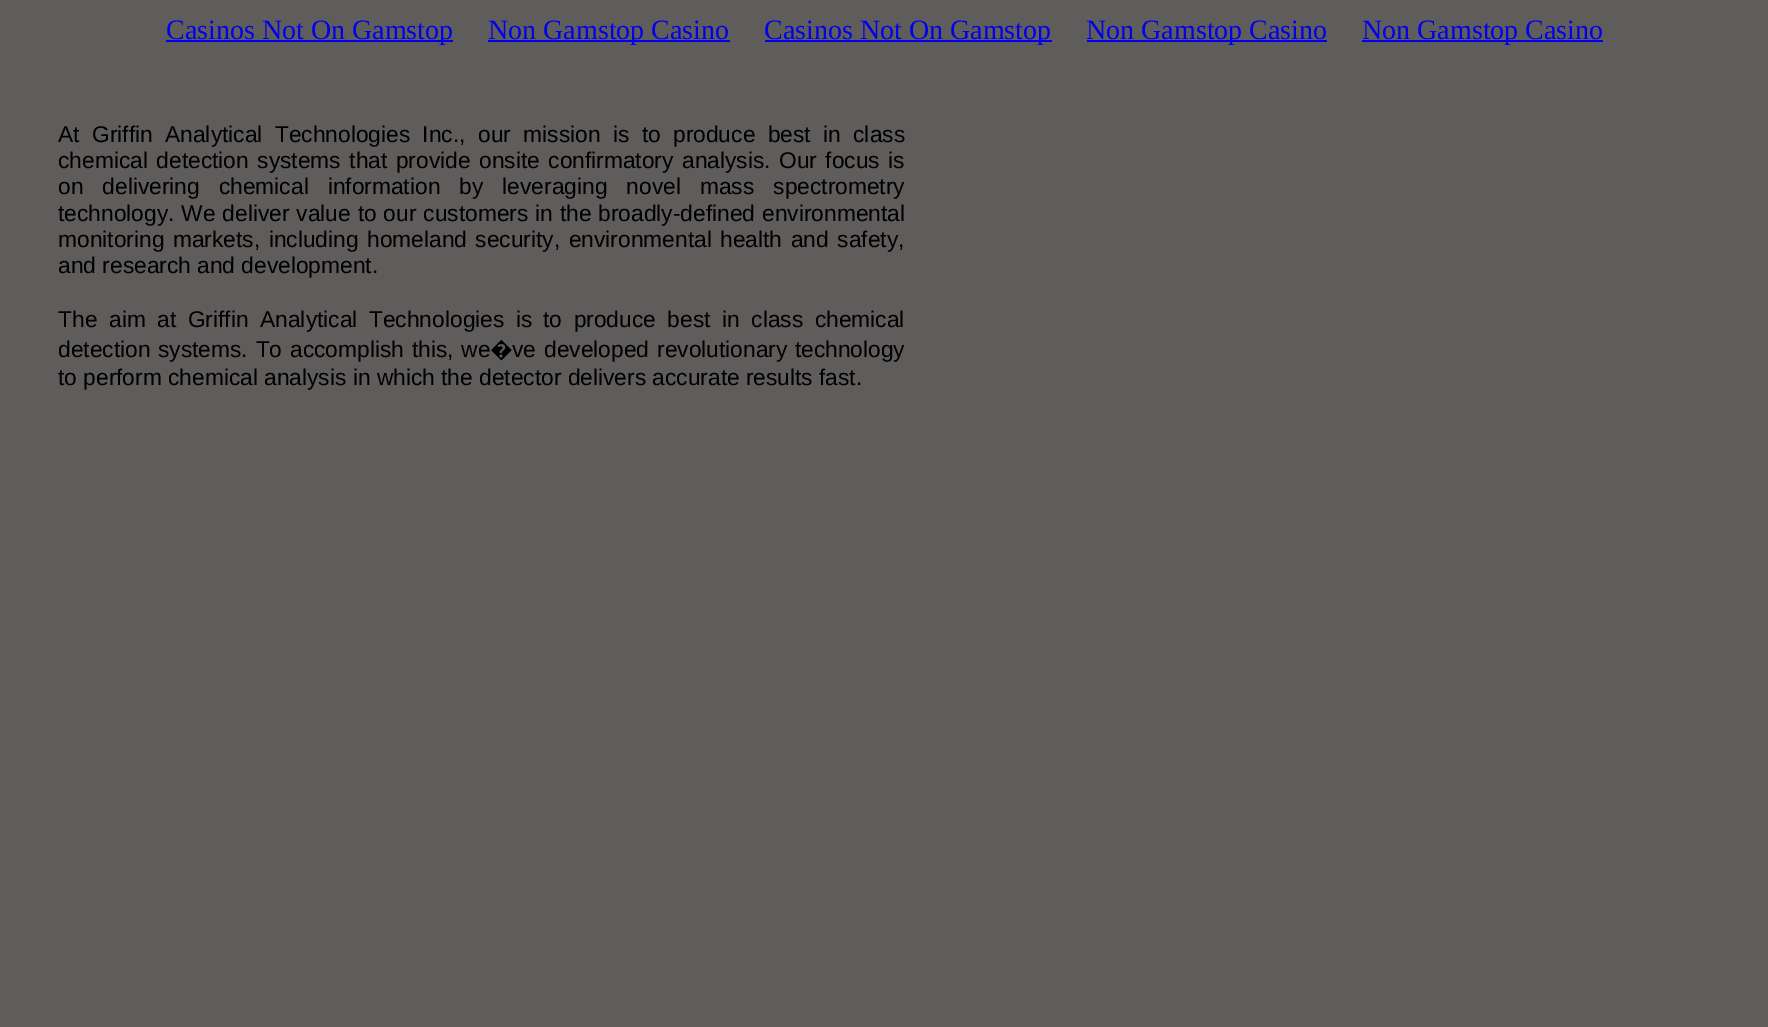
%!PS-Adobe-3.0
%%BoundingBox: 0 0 1768 1027
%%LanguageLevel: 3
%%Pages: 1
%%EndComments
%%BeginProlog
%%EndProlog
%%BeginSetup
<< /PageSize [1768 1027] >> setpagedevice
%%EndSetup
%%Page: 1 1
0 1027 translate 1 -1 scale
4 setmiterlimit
0.373 0.361 0.361 setrgbcolor
0 0 1768 1027 rectfill
0 0 0.933 setrgbcolor
166 40 287 2 rectfill
488 40 242 2 rectfill
765 40 287 2 rectfill
1087 40 240 2 rectfill
1362 40 241 2 rectfill
/LiberationSerif-Regular [28 0 0 -28 0 0] selectfont
166 39 moveto (Casinos Not On Gamstop) show
488 39 moveto (Non Gamstop Casino) show
764 39 moveto (Casinos Not On Gamstop) show
1086 39 moveto (Non Gamstop Casino) show
1362 39 moveto (Non Gamstop Casino) show
/LiberationSans-Regular [22.75 0 0 -22.75 0 0] selectfont
0 setgray
58 142 moveto 6.1 0 32 (At Griffin Analytical Technologies Inc., our mission is to produce best in class) widthshow
58 168 moveto 2.25 0 32 (chemical detection systems that provide onsite confirmatory analysis. Our focus is) widthshow
58 194 moveto 12.75 0 32 (on delivering chemical information by leveraging novel mass spectrometry) widthshow
58 221 moveto 0.6 0 32 (technology. We deliver value to our customers in the broadly-defined environmental) widthshow
58 247 moveto 2.25 0 32 (monitoring markets, including homeland security, environmental health and safety,) widthshow
58 273 moveto (and research and development.) show
58 327 moveto (The) show
109 327 moveto 5.25 0 32 (aim at Griffin Analytical Technologies is) widthshow
543 327 moveto 5.25 0 32 (to produce best in class chemical) widthshow
58 357 moveto (detection) show
158 357 moveto 1.5 0 32 (systems. To accomplish this, we) widthshow
/NotoSans-Regular [22.75 0 0 -22.75 0 0] selectfont
490 357 moveto (�) show
/LiberationSans-Regular [22.75 0 0 -22.75 0 0] selectfont
512 357 moveto 1.5 0 32 (ve developed) widthshow
657 357 moveto 1 0 32 (revolutionary technology) widthshow
58 385 moveto (to perform chemical analysis in which the detector delivers accurate results fast.) show
showpage
%%EOF
